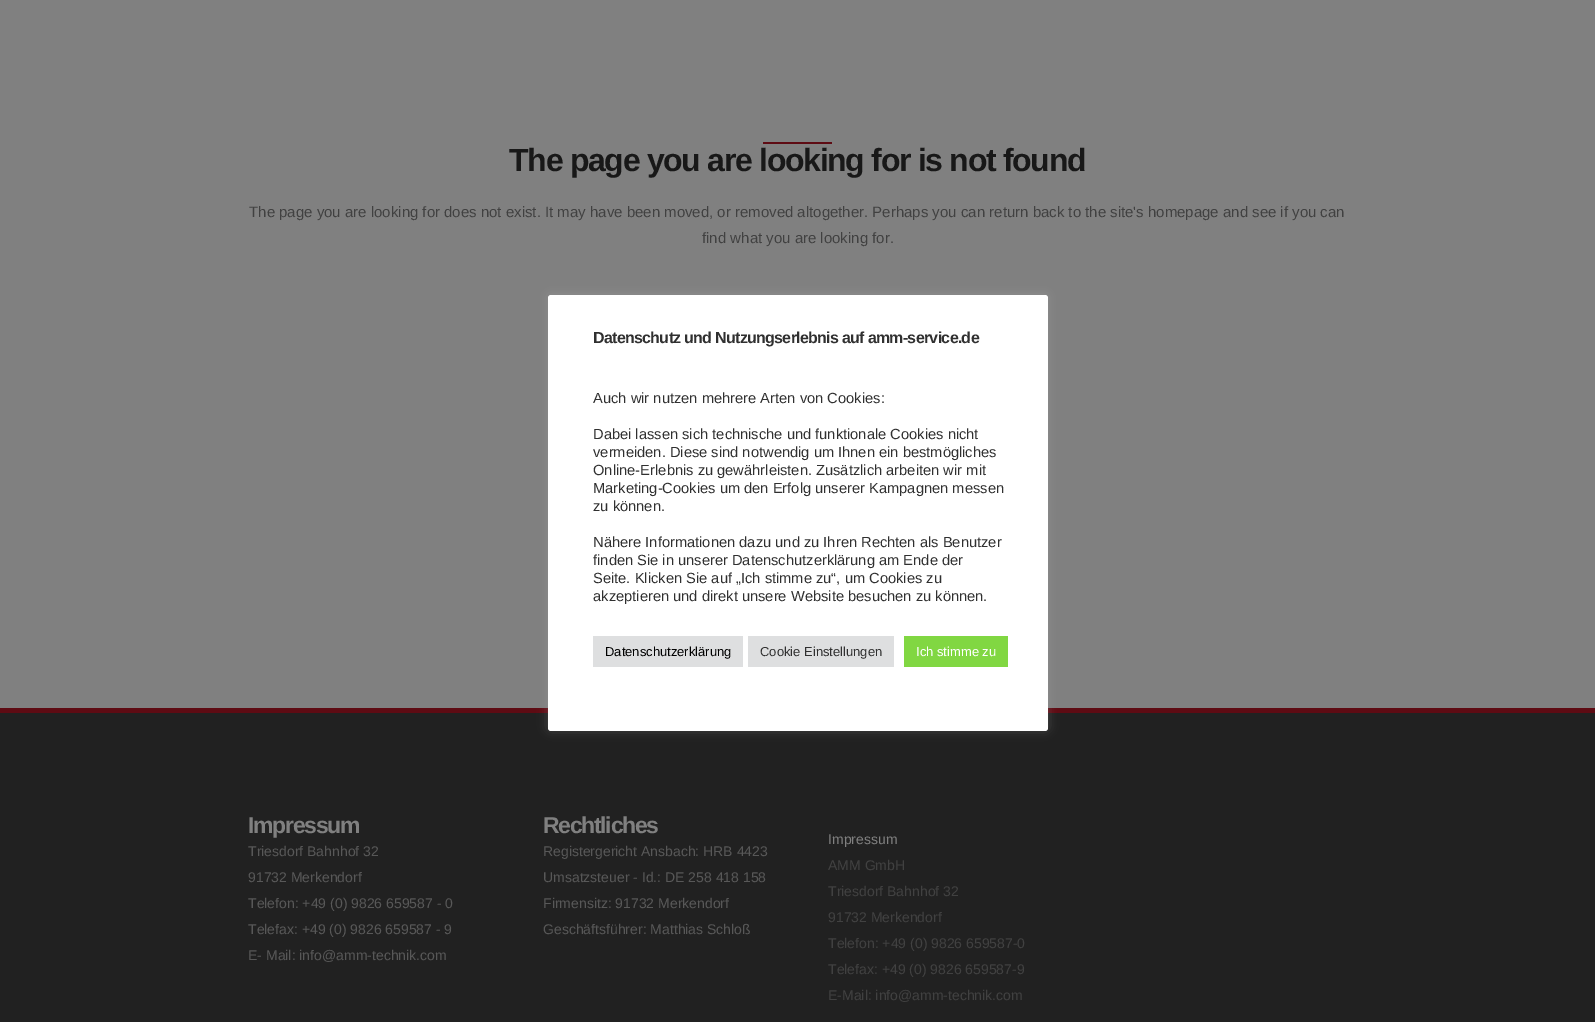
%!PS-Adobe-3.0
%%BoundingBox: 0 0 1595 1022
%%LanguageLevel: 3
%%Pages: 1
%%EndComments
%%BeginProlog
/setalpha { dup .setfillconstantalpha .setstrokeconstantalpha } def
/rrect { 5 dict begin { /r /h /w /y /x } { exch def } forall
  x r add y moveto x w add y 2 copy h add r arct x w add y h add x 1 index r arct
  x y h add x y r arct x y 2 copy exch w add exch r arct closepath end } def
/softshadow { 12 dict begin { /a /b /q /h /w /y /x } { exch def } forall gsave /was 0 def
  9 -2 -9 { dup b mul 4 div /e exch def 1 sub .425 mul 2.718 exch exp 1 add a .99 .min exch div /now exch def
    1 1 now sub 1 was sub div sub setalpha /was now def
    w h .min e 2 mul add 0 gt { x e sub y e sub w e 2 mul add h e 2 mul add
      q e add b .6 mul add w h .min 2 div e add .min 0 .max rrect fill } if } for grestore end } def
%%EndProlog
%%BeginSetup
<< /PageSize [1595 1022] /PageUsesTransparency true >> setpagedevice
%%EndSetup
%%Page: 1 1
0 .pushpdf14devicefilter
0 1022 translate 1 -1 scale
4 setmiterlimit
0.502 setgray
0 0 1595 1022 rectfill
0.369 0.043 0.075 setrgbcolor
763 142 69 2 rectfill
0.129 setgray
0 713 1595 309 rectfill
0.369 0.043 0.075 setrgbcolor
0 708 1595 5 rectfill
0.675 0.671 0.671 setrgbcolor
548 294 500 436 3 5 0.3 softshadow
1 setgray
548 295 500 436 3 rrect fill
0.871 0.875 0.878 setrgbcolor
593 636 150 31 rectfill
748 636 146 31 rectfill
0.506 0.843 0.259 setrgbcolor
904 636 104 31 rectfill
/LiberationSans-Bold [32 0 0 -32 0 0] selectfont
0.094 setgray
509 171 moveto -1.3 0 (The page you are looking for is not found) ashow
/LiberationSans-Regular [15 0 0 -15 0 0] selectfont
0.255 setgray
249 217 moveto (The page you are looking for does not exist. It may have been moved, or removed altogether. Perhaps you can return back to the site's homepage and see if you can) show
702 243 moveto (find what you are looking for.) show
/LiberationSans-Bold [23 0 0 -23 0 0] selectfont
0.502 setgray
248 833 moveto -1.3 0 (Impressum) ashow
/LiberationSans-Regular [14 0 0 -14 0 0] selectfont
0.345 setgray
248 856 moveto (Triesdorf Bahnhof 32) show
248 882 moveto (91732 Merkendorf) show
248 908 moveto (Telefon: +49 \(0\) 9826 659587 - 0) show
248 934 moveto (Telefax: +49 \(0\) 9826 659587 - 9) show
248 960 moveto (E- Mail: info@amm-technik.com) show
/LiberationSans-Bold [23 0 0 -23 0 0] selectfont
0.502 setgray
543 833 moveto -1.3 0 (Rechtliches) ashow
/LiberationSans-Regular [14 0 0 -14 0 0] selectfont
0.345 setgray
543 856 moveto (Registergericht Ansbach: HRB 4423) show
543 882 moveto (Umsatzsteuer - Id.: DE 258 418 158) show
543 908 moveto (Firmensitz: 91732 Merkendorf) show
543 934 moveto (Geschäftsführer: Matthias Schloß) show
0.502 setgray
828 844 moveto (Impressum) show
0.255 setgray
828 870 moveto (AMM GmbH) show
828 896 moveto (Triesdorf Bahnhof 32) show
828 922 moveto (91732 Merkendorf) show
828 948 moveto (Telefon: +49 \(0\) 9826 659587-0) show
828 974 moveto (Telefax: +49 \(0\) 9826 659587-9) show
828 1000 moveto (E-Mail: info@amm-technik.com) show
/LiberationSans-Bold [16 0 0 -16 0 0] selectfont
0.188 setgray
593 343 moveto -0.7 0 (Datenschutz und Nutzungserlebnis auf amm-service.de) ashow
/LiberationSans-Regular [14.7 0 0 -14.7 0 0] selectfont
593 403 moveto (Auch wir nutzen mehrere Arten von Cookies:) show
593 439 moveto (Dabei lassen sich technische und funktionale Cookies nicht) show
593 457 moveto (vermeiden. Diese sind notwendig um Ihnen ein bestmögliches) show
593 475 moveto (Online-Erlebnis zu gewährleisten. Zusätzlich arbeiten wir mit) show
593 493 moveto (Marketing-Cookies um den Erfolg unserer Kampagnen messen) show
593 511 moveto (zu können.) show
593 547 moveto (Nähere Informationen dazu und zu Ihren Rechten als Benutzer) show
593 565 moveto (finden Sie in unserer Datenschutzerklärung am Ende der) show
593 583 moveto (Seite. Klicken Sie auf „Ich stimme zu“, um Cookies zu) show
593 601 moveto (akzeptieren und direkt unsere Website besuchen zu können.) show
/LiberationSans-Regular [13 0 0 -13 0 0] selectfont
0 setgray
605 656 moveto (Datenschutzerklärung) show
0.188 setgray
760 656 moveto (Cookie Einstellungen) show
1 setgray
916 656 moveto (Ich stimme zu) show
.poppdf14devicefilter showpage
%%EOF
